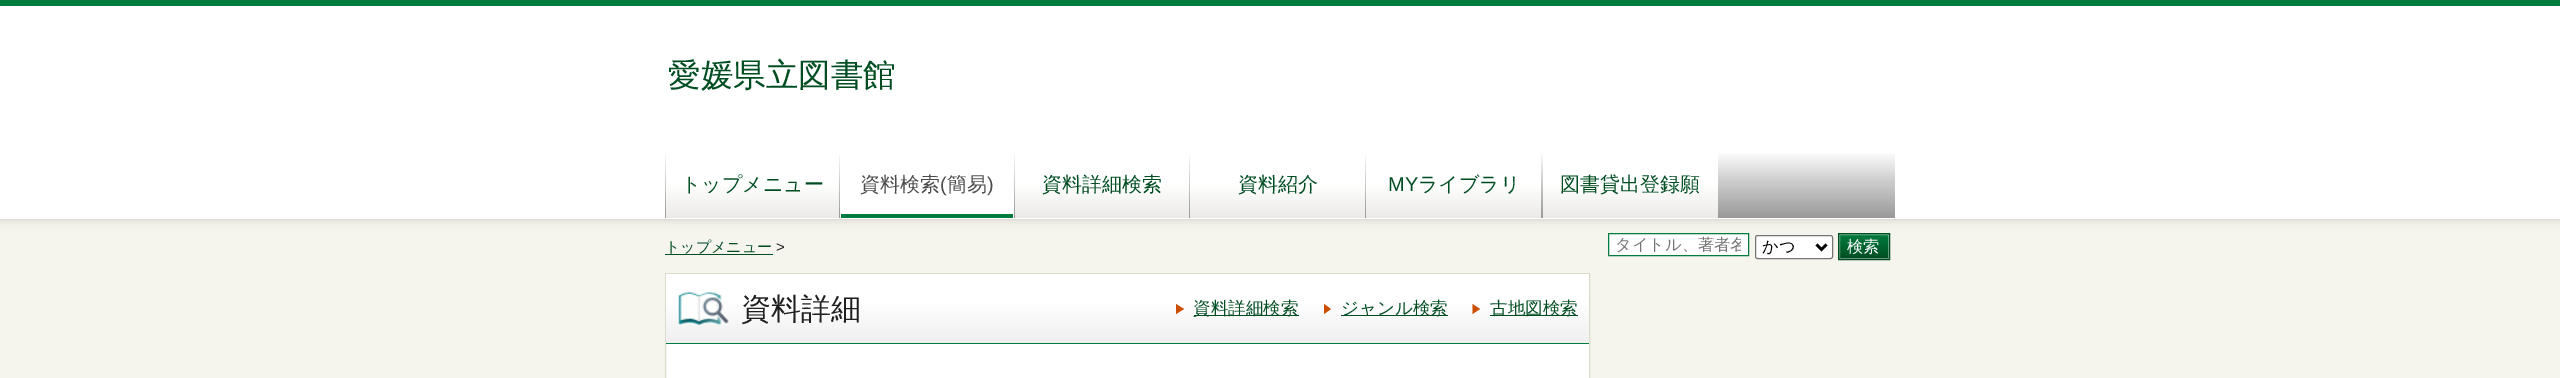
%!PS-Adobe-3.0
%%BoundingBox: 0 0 2560 378
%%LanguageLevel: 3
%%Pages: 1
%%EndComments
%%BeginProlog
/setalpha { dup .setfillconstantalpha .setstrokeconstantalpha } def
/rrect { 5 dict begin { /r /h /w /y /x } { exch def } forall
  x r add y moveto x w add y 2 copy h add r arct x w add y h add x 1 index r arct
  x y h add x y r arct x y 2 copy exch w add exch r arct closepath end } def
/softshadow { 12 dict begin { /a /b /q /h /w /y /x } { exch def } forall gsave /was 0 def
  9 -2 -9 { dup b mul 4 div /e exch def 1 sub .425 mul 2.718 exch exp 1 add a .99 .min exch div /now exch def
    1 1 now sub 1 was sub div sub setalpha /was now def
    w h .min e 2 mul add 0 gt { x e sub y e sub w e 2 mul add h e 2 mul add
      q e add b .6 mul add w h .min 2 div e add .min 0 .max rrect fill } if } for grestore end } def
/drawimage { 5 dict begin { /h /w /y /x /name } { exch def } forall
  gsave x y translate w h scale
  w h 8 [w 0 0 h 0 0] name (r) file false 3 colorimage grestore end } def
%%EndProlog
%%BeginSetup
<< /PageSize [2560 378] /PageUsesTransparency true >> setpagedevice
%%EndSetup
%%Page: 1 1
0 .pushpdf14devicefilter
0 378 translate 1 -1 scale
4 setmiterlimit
0.961 0.957 0.929 setrgbcolor
0 0 2560 378 rectfill
0 setgray
0 0 2560 220 0 4.5 0.13 softshadow
1 setgray
0 6 2560 213 rectfill
0 0.486 0.243 setrgbcolor
0 0 2560 6 rectfill
0.871 0.867 0.847 setrgbcolor
0 219 2560 1 rectfill
gsave newpath 665 153 moveto 1895 153 lineto 1895 218 lineto 665 218 lineto closepath clip newpath
<< /ShadingType 2 /ColorSpace /DeviceRGB /Coords [1280 218 1280 148] /Extend [true true] /Function << /FunctionType 3 /Domain [0 1] /Functions [<< /FunctionType 2 /Domain [0 1] /C0 [0.6 0.6 0.6] /C1 [0.812 0.812 0.812] /N 1 >> << /FunctionType 2 /Domain [0 1] /C0 [0.812 0.812 0.812] /C1 [1 1 1] /N 1 >> << /FunctionType 2 /Domain [0 1] /C0 [1 1 1] /C1 [1 1 1] /N 1 >>] /Bounds [0.55 0.95] /Encode [0 1 0 1 0 1] >> >> shfill grestore
gsave newpath 666 153 moveto 839 153 lineto 839 218 lineto 666 218 lineto closepath clip newpath
<< /ShadingType 2 /ColorSpace /DeviceRGB /Coords [753 218 753 148] /Extend [true true] /Function << /FunctionType 3 /Domain [0 1] /Functions [<< /FunctionType 2 /Domain [0 1] /C0 [0.922 0.918 0.914] /C1 [1 1 1] /N 1 >> << /FunctionType 2 /Domain [0 1] /C0 [1 1 1] /C1 [1 1 1] /N 1 >>] /Bounds [0.5] /Encode [0 1 0 1] >> >> shfill grestore
1 setgray
840 153 174 61 rectfill
0 0.486 0.243 setrgbcolor
840 214 174 4 rectfill
1 setgray
840 214 1 4 rectfill
1013 214 1 4 rectfill
gsave newpath 1015 153 moveto 1189 153 lineto 1189 218 lineto 1015 218 lineto closepath clip newpath
<< /ShadingType 2 /ColorSpace /DeviceRGB /Coords [1102 218 1102 148] /Extend [true true] /Function << /FunctionType 3 /Domain [0 1] /Functions [<< /FunctionType 2 /Domain [0 1] /C0 [0.922 0.918 0.914] /C1 [1 1 1] /N 1 >> << /FunctionType 2 /Domain [0 1] /C0 [1 1 1] /C1 [1 1 1] /N 1 >>] /Bounds [0.5] /Encode [0 1 0 1] >> >> shfill grestore
gsave newpath 1190 153 moveto 1365 153 lineto 1365 218 lineto 1190 218 lineto closepath clip newpath
<< /ShadingType 2 /ColorSpace /DeviceRGB /Coords [1278 218 1278 148] /Extend [true true] /Function << /FunctionType 3 /Domain [0 1] /Functions [<< /FunctionType 2 /Domain [0 1] /C0 [0.922 0.918 0.914] /C1 [1 1 1] /N 1 >> << /FunctionType 2 /Domain [0 1] /C0 [1 1 1] /C1 [1 1 1] /N 1 >>] /Bounds [0.5] /Encode [0 1 0 1] >> >> shfill grestore
gsave newpath 1366 153 moveto 1541 153 lineto 1541 218 lineto 1366 218 lineto closepath clip newpath
<< /ShadingType 2 /ColorSpace /DeviceRGB /Coords [1454 218 1454 148] /Extend [true true] /Function << /FunctionType 3 /Domain [0 1] /Functions [<< /FunctionType 2 /Domain [0 1] /C0 [0.922 0.918 0.914] /C1 [1 1 1] /N 1 >> << /FunctionType 2 /Domain [0 1] /C0 [1 1 1] /C1 [1 1 1] /N 1 >>] /Bounds [0.5] /Encode [0 1 0 1] >> >> shfill grestore
gsave newpath 1543 153 moveto 1718 153 lineto 1718 218 lineto 1543 218 lineto closepath clip newpath
<< /ShadingType 2 /ColorSpace /DeviceRGB /Coords [1630 218 1630 148] /Extend [true true] /Function << /FunctionType 3 /Domain [0 1] /Functions [<< /FunctionType 2 /Domain [0 1] /C0 [0.922 0.918 0.914] /C1 [1 1 1] /N 1 >> << /FunctionType 2 /Domain [0 1] /C0 [1 1 1] /C1 [1 1 1] /N 1 >>] /Bounds [0.5] /Encode [0 1 0 1] >> >> shfill grestore
0 0.302 0.133 setrgbcolor
665 254 108 1 rectfill
1 setgray
newpath 1608.5 233.5 moveto 1748.5 233.5 lineto 1748.5 255.5 lineto 1608.5 255.5 lineto closepath gsave fill grestore
0 0.486 0.243 setrgbcolor
stroke
1 setgray
1755.5 235.5 77 23 2 rrect gsave fill grestore
0.463 setgray
stroke
0 setgray
2.5 setlinewidth
newpath 1816.5 244.5 moveto 1821.5 249.5 lineto 1826.5 244.5 lineto stroke
gsave newpath 1839 234 moveto 1889 234 lineto 1889 259 lineto 1839 259 lineto closepath clip newpath
<< /ShadingType 2 /ColorSpace /DeviceRGB /Coords [1864 259 1864 234] /Extend [true true] /Function << /FunctionType 2 /Domain [0 1] /C0 [0 0.302 0.133] /C1 [0 0.486 0.243] /N 1 >> >> shfill grestore
0.4 setalpha
0.988 setgray
1 setlinewidth
1839.5 234.5 49 24 rectstroke
1 setalpha
0 0.302 0.133 setrgbcolor
1838.5 233.5 51 26 rectstroke
1 setgray
666 344 923 34 rectfill
0.859 0.855 0.796 setrgbcolor
665.5 273.5 924 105 rectstroke
gsave newpath 666 274 moveto 1589 274 lineto 1589 343 lineto 666 343 lineto closepath clip newpath
<< /ShadingType 2 /ColorSpace /DeviceRGB /Coords [1128 343 1128 274] /Extend [true true] /Function << /FunctionType 3 /Domain [0 1] /Functions [<< /FunctionType 2 /Domain [0 1] /C0 [0.937 0.937 0.937] /C1 [1 1 1] /N 1 >> << /FunctionType 2 /Domain [0 1] /C0 [1 1 1] /C1 [1 1 1] /N 1 >>] /Bounds [0.62] /Encode [0 1 0 1] >> >> shfill grestore
0 0.486 0.243 setrgbcolor
666 343 923 1 rectfill
(images/1.raw) 678 292 51 33 drawimage
0.8 0.306 0 setrgbcolor
newpath 1176 314 moveto 1176 304 lineto 1184 309 lineto closepath fill
0 0.302 0.133 setrgbcolor
1194 315 105 1 rectfill
0.8 0.306 0 setrgbcolor
newpath 1324 314 moveto 1324 304 lineto 1331 309 lineto closepath fill
0 0.302 0.133 setrgbcolor
1341 315 107 1 rectfill
0.8 0.306 0 setrgbcolor
newpath 1472.5 314 moveto 1472.5 304 lineto 1480 309 lineto closepath fill
0 0.302 0.133 setrgbcolor
1490 315 88 1 rectfill
/WenQuanYiZenHei-Medium [32.5 0 0 -32.5 0 0] selectfont
668 86 moveto (愛媛県立図書館) show
/WenQuanYiZenHei-Medium [20 0 0 -20 0 0] selectfont
681 191 moveto (トップメニュー) show
0.298 setgray
860 191 moveto (資料検索) show
/LiberationSans-Regular [20 0 0 -20 0 0] selectfont
940 191 moveto (\() show
/WenQuanYiZenHei-Medium [20 0 0 -20 0 0] selectfont
947 191 moveto (簡易) show
/LiberationSans-Regular [20 0 0 -20 0 0] selectfont
987 191 moveto (\)) show
/WenQuanYiZenHei-Medium [20 0 0 -20 0 0] selectfont
0 0.302 0.133 setrgbcolor
1042 191 moveto (資料詳細検索) show
1238 191 moveto (資料紹介) show
/LiberationSans-Regular [20 0 0 -20 0 0] selectfont
1388 191 moveto (MY) show
/WenQuanYiZenHei-Medium [20 0 0 -20 0 0] selectfont
1418 191 moveto (ライブラリ) show
1560 191 moveto (図書貸出登録願) show
/WenQuanYiZenHei-Medium [15 0 0 -15 0 0] selectfont
665 252 moveto (トップメニュー) show
/LiberationSans-Regular [15 0 0 -15 0 0] selectfont
0.122 setgray
776 252 moveto (>) show
gsave
1615 234 126 21 rectclip
/WenQuanYiZenHei-Medium [16.25 0 0 -16.25 0 0] selectfont
0.459 setgray
1615 250 moveto (タイトル、著者名) show
grestore
/WenQuanYiZenHei-Medium [16.25 0 0 -16.25 0 0] selectfont
0 setgray
1762 252 moveto (かつ) show
1 setgray
1847 252 moveto (検索) show
/WenQuanYiZenHei-Medium [30 0 0 -30 0 0] selectfont
0.122 setgray
741 319 moveto (資料詳細) show
/WenQuanYiZenHei-Medium [17.5 0 0 -17.5 0 0] selectfont
0 0.302 0.133 setrgbcolor
1193 314 moveto (資料詳細検索) show
1341 314 moveto (ジャンル検索) show
1490 314 moveto (古地図検索) show
.poppdf14devicefilter showpage
%%EOF
